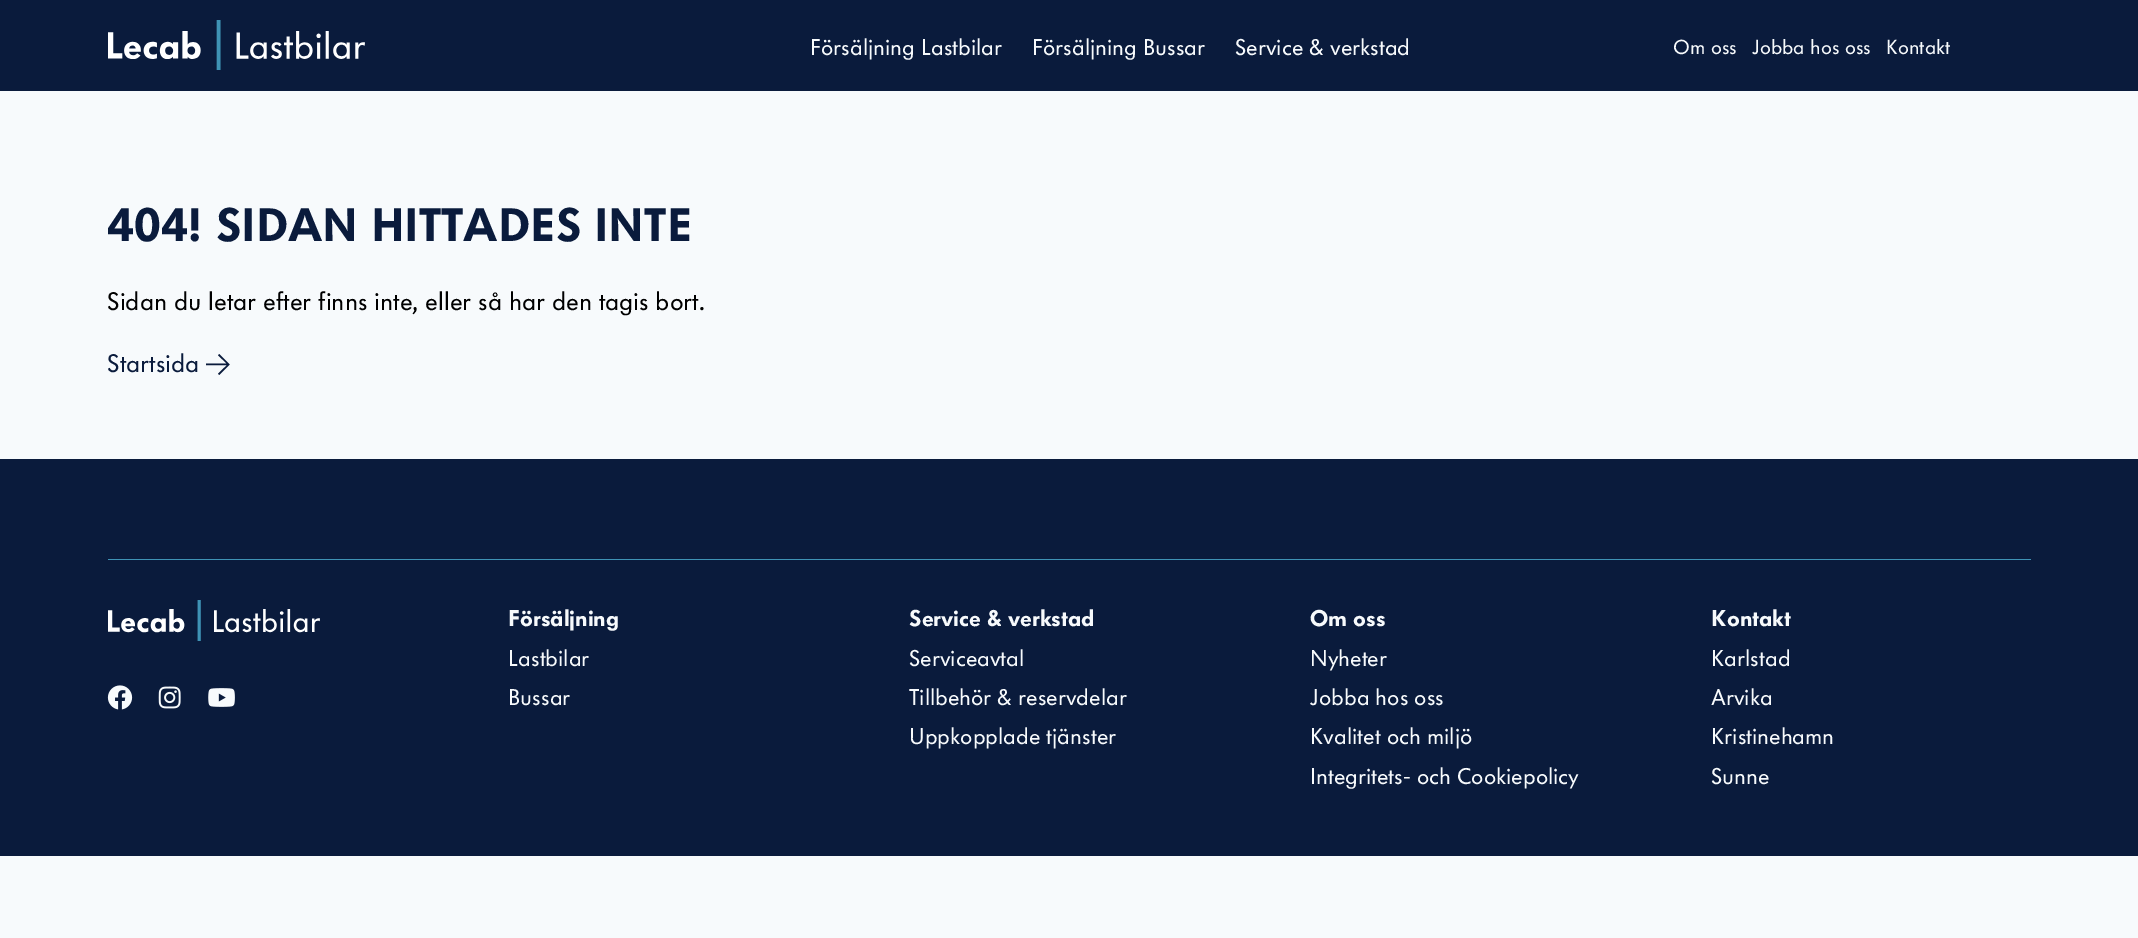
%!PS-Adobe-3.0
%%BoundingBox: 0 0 2138 938
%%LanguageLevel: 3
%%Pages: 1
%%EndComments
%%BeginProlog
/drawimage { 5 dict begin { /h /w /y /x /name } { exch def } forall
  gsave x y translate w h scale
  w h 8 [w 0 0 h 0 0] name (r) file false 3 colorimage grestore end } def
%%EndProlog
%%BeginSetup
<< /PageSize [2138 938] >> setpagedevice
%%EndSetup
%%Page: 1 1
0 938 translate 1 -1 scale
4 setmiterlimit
0.969 0.98 0.988 setrgbcolor
0 0 2138 938 rectfill
0.039 0.106 0.235 setrgbcolor
0 0 2138 91 rectfill
(images/1.raw) 108 20 257 50 drawimage
0 459 2138 397 rectfill
0.247 0.576 0.71 setrgbcolor
108 559 1923 1 rectfill
(images/2.raw) 108 600 212 41 drawimage
(images/3.raw) 107 685 26 25 drawimage
(images/4.raw) 158 686 23 23 drawimage
(images/5.raw) 208 688 27 19 drawimage
/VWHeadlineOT-Regular [22.5 0 0 -22.5 0 0] selectfont
0.969 0.98 0.988 setrgbcolor
810 55 moveto (Försäljning Lastbilar) show
1032 55 moveto (Försäljning Bussar) show
1235 55 moveto (Service & verkstad) show
/VWHeadlineOT-Regular [20 0 0 -20 0 0] selectfont
1673 54 moveto (Om oss) show
1752 54 moveto (Jobba hos oss) show
1886 54 moveto (Kontakt) show
/VWHeadlineOT-Black [46.25 0 0 -46.25 0 0] selectfont
0.039 0.106 0.235 setrgbcolor
107 241 moveto (404! SIDAN HITTADES INTE) show
/VWHeadlineOT-Regular [25 0 0 -25 0 0] selectfont
0 setgray
107 310 moveto (Sidan du letar efter finns inte, eller så har den tagis bort.) show
0.039 0.106 0.235 setrgbcolor
107 372 moveto (Startsida →) show
/VWHeadlineOT-Black [22.5 0 0 -22.5 0 0] selectfont
0.969 0.98 0.988 setrgbcolor
508 626 moveto (Försäljning) show
/VWHeadlineOT-Regular [22.5 0 0 -22.5 0 0] selectfont
508 666 moveto (Lastbilar) show
508 705 moveto (Bussar) show
/VWHeadlineOT-Black [22.5 0 0 -22.5 0 0] selectfont
909 626 moveto (Service & verkstad) show
/VWHeadlineOT-Regular [22.5 0 0 -22.5 0 0] selectfont
909 666 moveto (Serviceavtal) show
909 705 moveto (Tillbehör & reservdelar) show
909 744 moveto (Uppkopplade tjänster) show
/VWHeadlineOT-Black [22.5 0 0 -22.5 0 0] selectfont
1310 626 moveto (Om oss) show
/VWHeadlineOT-Regular [22.5 0 0 -22.5 0 0] selectfont
1310 666 moveto (Nyheter) show
1310 705 moveto (Jobba hos oss) show
1310 744 moveto (Kvalitet och miljö) show
1310 784 moveto (Integritets- och Cookiepolicy) show
/VWHeadlineOT-Black [22.5 0 0 -22.5 0 0] selectfont
1711 626 moveto (Kontakt) show
/VWHeadlineOT-Regular [22.5 0 0 -22.5 0 0] selectfont
1711 666 moveto (Karlstad) show
1711 705 moveto (Arvika) show
1711 744 moveto (Kristinehamn) show
1711 784 moveto (Sunne) show
showpage
%%EOF
